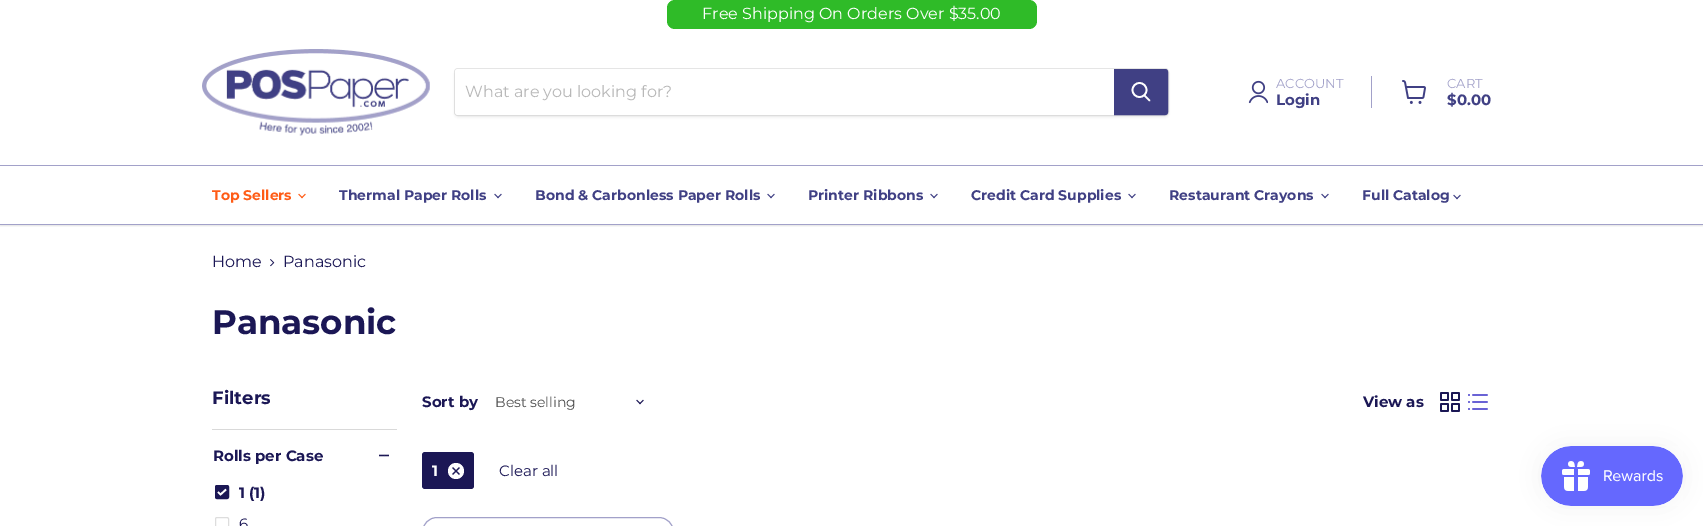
%!PS-Adobe-3.0
%%BoundingBox: 0 0 1703 526
%%LanguageLevel: 3
%%Pages: 1
%%EndComments
%%BeginProlog
/setalpha { dup .setfillconstantalpha .setstrokeconstantalpha } def
/rrect { 5 dict begin { /r /h /w /y /x } { exch def } forall
  x r add y moveto x w add y 2 copy h add r arct x w add y h add x 1 index r arct
  x y h add x y r arct x y 2 copy exch w add exch r arct closepath end } def
/softshadow { 12 dict begin { /a /b /q /h /w /y /x } { exch def } forall gsave /was 0 def
  9 -2 -9 { dup b mul 4 div /e exch def 1 sub .425 mul 2.718 exch exp 1 add a .99 .min exch div /now exch def
    1 1 now sub 1 was sub div sub setalpha /was now def
    w h .min e 2 mul add 0 gt { x e sub y e sub w e 2 mul add h e 2 mul add
      q e add b .6 mul add w h .min 2 div e add .min 0 .max rrect fill } if } for grestore end } def
/drawimage { 5 dict begin { /h /w /y /x /name } { exch def } forall
  gsave x y translate w h scale
  w h 8 [w 0 0 h 0 0] name (r) file false 3 colorimage grestore end } def
%%EndProlog
%%BeginSetup
<< /PageSize [1703 526] /PageUsesTransparency true >> setpagedevice
%%EndSetup
%%Page: 1 1
0 .pushpdf14devicefilter
0 526 translate 1 -1 scale
4 setmiterlimit
1 setgray
0 0 1703 526 rectfill
gsave
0 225 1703 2 rectclip
0.502 setgray
0 30 1703 196 0 1 0.25 softshadow
grestore
0.184 0.733 0.157 setrgbcolor
667 0 370 29 8 rrect fill
(images/1.raw) 202 49 228 87 drawimage
0.502 setgray
454 70 715 48 4 1.5 0.11 softshadow
0.2 setalpha
454.5 68.5 714 47 3.5 rrect stroke
1 setalpha
1 setgray
newpath 458 69 moveto 1114 69 lineto 1114 115 lineto 458 115 lineto 456.5 115 455 113.5 455 112 curveto 455 72 lineto 455 70.5 456.5 69 458 69 curveto closepath fill
0.251 0.251 0.518 setrgbcolor
newpath 1114.5 69.5 moveto 1165 69.5 lineto 1166.5 69.5 1167.5 70.5 1167.5 72 curveto 1167.5 112 lineto 1167.5 113.5 1166.5 114.5 1165 114.5 curveto 1114.5 114.5 lineto closepath gsave fill grestore
stroke
1 setgray
1.7 setlinewidth
1 setlinecap
newpath 1149.5 100.5 moveto 1144.5 95.5 lineto stroke
0 setlinecap
newpath 1139.5 90 7 0 360 arc closepath stroke
0.635 0.631 0.788 setrgbcolor
1371 76 1 32 rectfill
(images/2.raw) 1248 80 20 24 drawimage
(images/3.raw) 1402 80 24 24 drawimage
0 165 1703 1 rectfill
0 224 1703 1 rectfill
(images/4.raw) 298 193 8 6 drawimage
(images/5.raw) 494 193 8 6 drawimage
(images/5.raw) 767 193 8 6 drawimage
(images/5.raw) 930 193 8 6 drawimage
(images/5.raw) 1128 193 8 6 drawimage
(images/5.raw) 1321 193 8 6 drawimage
(images/5.raw) 1453 194 8 6 drawimage
(images/6.raw) 270 259 5 8 drawimage
0.851 setgray
212 429 185 1 rectfill
(images/7.raw) 379 454 10 3 drawimage
0.106 0.09 0.333 setrgbcolor
215.5 485.5 13 13 1.5 rrect gsave fill grestore
1 setlinewidth
stroke
1 setgray
1.7 setlinewidth
newpath 218 492 moveto 220.5 494.5 lineto 226 489.5 lineto stroke
0.867 setgray
1 setlinewidth
215.5 517.5 13 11 1.5 rrect stroke
(images/8.raw) 636 399 8 6 drawimage
(images/9.raw) 1440 392 20 20 drawimage
(images/10.raw) 1468 394 20 16 drawimage
0.106 0.09 0.333 setrgbcolor
422 452 52 37 3 rrect fill
1 setgray
newpath 456 471 8 0 360 arc closepath fill
(images/11.raw) 452 467 8 8 drawimage
0.635 0.631 0.788 setrgbcolor
422.5 517.5 251 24 14.5 rrect stroke
0 setgray
1541 446 142 60 30 12.5 0.05 softshadow
(images/12.raw) 1541 446 142 60 drawimage
/Montserrat-Regular [16 0 0 -16 0 0] selectfont
1 setgray
702 19 moveto (Free Shipping On Orders Over $35.00) show
0.722 setgray
465 97 moveto (What are you looking for?) show
/Montserrat-Regular [13 0 0 -13 0 0] selectfont
0.635 0.631 0.788 setrgbcolor
1276 88 moveto (ACCOUNT) show
/Montserrat-Bold [15 0 0 -15 0 0] selectfont
0.251 0.251 0.518 setrgbcolor
1276 105 moveto (Login) show
/Montserrat-Regular [13 0 0 -13 0 0] selectfont
0.635 0.631 0.788 setrgbcolor
1447 88 moveto (CART) show
/Montserrat-Bold [15 0 0 -15 0 0] selectfont
0.251 0.251 0.518 setrgbcolor
1447 105 moveto ($0.00) show
/Montserrat-Bold [14 0 0 -14 0 0] selectfont
1 0.361 0.086 setrgbcolor
212 200 moveto (Top Sellers) show
0.251 0.251 0.518 setrgbcolor
339 200 moveto (Thermal Paper Rolls) show
535 200 moveto (Bond & Carbonless Paper Rolls) show
808 200 moveto (Printer Ribbons) show
971 200 moveto (Credit Card Supplies) show
1169 200 moveto (Restaurant Crayons) show
1362 200 moveto (Full Catalog) show
/Montserrat-Regular [16 0 0 -16 0 0] selectfont
0.106 0.09 0.333 setrgbcolor
212 267 moveto (Home) show
283 267 moveto (Panasonic) show
/Montserrat-Bold [34 0 0 -34 0 0] selectfont
212 334 moveto (Panasonic) show
/Montserrat-Bold [18 0 0 -18 0 0] selectfont
212 404 moveto (Filters) show
/Montserrat-Bold [15 0 0 -15 0 0] selectfont
213 461 moveto (Rolls per Case) show
239 498 moveto (1 \(1\)) show
/Montserrat-Regular [15 0 0 -15 0 0] selectfont
239 529 moveto (6) show
/Montserrat-Bold [15 0 0 -15 0 0] selectfont
422 407 moveto (Sort by) show
/Montserrat-Regular [14 0 0 -14 0 0] selectfont
0.302 setgray
495 407 moveto (Best selling) show
/Montserrat-Bold [15 0 0 -15 0 0] selectfont
0.106 0.09 0.333 setrgbcolor
1363 407 moveto (View as) show
1 setgray
432 476 moveto (1) show
/Montserrat-Regular [15 0 0 -15 0 0] selectfont
0.106 0.09 0.333 setrgbcolor
499 476 moveto (Clear all) show
.poppdf14devicefilter showpage
%%EOF
